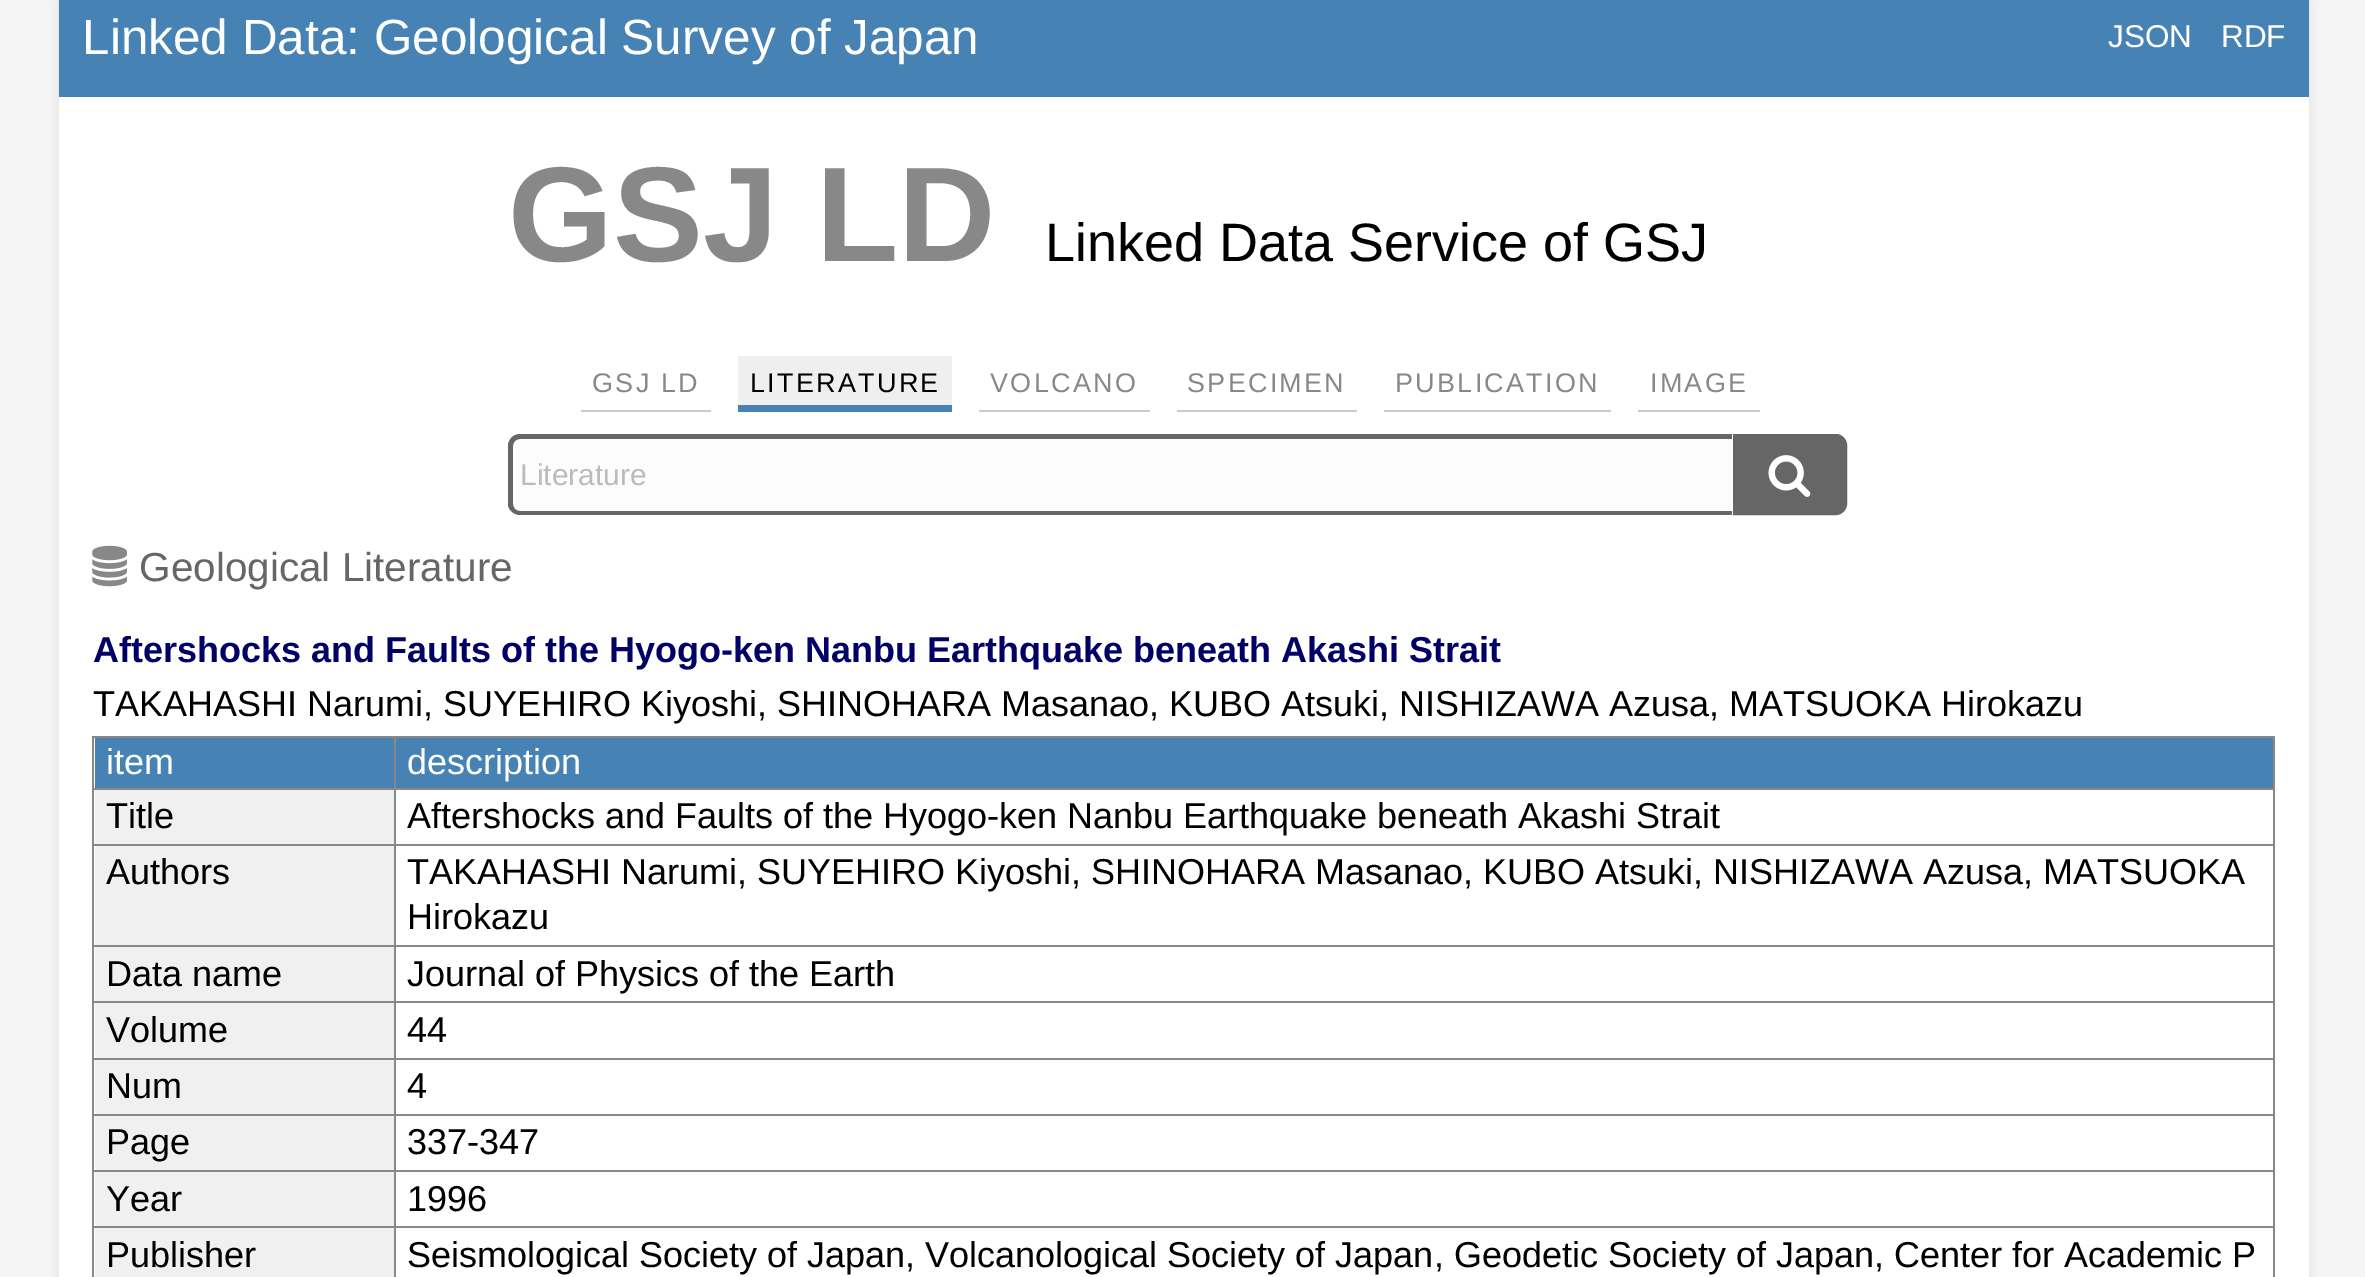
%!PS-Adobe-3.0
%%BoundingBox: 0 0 2365 1277
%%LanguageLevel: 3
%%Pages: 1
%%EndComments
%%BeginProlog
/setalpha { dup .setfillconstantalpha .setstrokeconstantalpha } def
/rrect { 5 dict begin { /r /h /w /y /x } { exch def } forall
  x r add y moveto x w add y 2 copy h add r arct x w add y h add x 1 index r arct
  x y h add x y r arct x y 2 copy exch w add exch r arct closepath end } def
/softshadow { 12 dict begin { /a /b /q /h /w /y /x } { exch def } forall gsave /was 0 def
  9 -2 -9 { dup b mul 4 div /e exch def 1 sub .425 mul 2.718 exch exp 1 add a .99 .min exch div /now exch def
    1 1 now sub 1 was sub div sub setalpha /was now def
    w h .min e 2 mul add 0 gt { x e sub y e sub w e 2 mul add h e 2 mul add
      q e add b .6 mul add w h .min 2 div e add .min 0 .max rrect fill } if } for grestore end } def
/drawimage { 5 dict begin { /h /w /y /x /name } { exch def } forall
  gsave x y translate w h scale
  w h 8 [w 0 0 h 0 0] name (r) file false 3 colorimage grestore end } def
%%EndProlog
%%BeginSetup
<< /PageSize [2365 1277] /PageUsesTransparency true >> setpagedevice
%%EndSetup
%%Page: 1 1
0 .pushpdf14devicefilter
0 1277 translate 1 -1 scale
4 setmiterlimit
0.961 setgray
0 0 2365 1277 rectfill
0.867 setgray
59 0 2250 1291 0 4.5 1 softshadow
1 setgray
59 97 2250 1180 rectfill
0.275 0.51 0.706 setrgbcolor
59 0 2250 97 rectfill
0.8 setgray
581 410 130 2 rectfill
0.937 setgray
738 356 214 49 rectfill
0.275 0.51 0.706 setrgbcolor
738 405 214 7 rectfill
0.8 setgray
979 410 171 2 rectfill
1177 410 180 2 rectfill
1384 410 227 2 rectfill
1638 410 122 2 rectfill
0.988 setgray
newpath 520 434 moveto 1733 434 lineto 1733 515 lineto 520 515 lineto 514 515 509 510 509 504 curveto 509 445 lineto 509 439 514 434 520 434 curveto closepath fill
0.4 setgray
newpath 520 434 moveto 1732 434 lineto 1732 515 lineto 520 515 lineto 514 515 508 510 508 504 curveto 508 446 lineto 508 439 514 434 520 434 curveto closepath 520 439 moveto 1732 439 lineto 1732 511 lineto 520 511 lineto 516 511 513 508 513 504 curveto 513 446 lineto 513 442 516 439 520 439 curveto closepath eofill
newpath 1735.5 436.5 moveto 1836 436.5 lineto 1840.5 436.5 1844.5 440.5 1844.5 445 curveto 1844.5 504 lineto 1844.5 508.5 1840.5 512.5 1836 512.5 curveto 1735.5 512.5 lineto closepath gsave fill grestore
5 setlinewidth
stroke
(images/1.raw) 1768 455 43 42 drawimage
(images/2.raw) 92 545 35 42 drawimage
0.275 0.51 0.706 setrgbcolor
95 738 299 50 rectfill
0.533 setgray
394 736 1881 2 rectfill
394 788 1881 2 rectfill
394 844 1881 2 rectfill
394 945 1881 2 rectfill
0.941 setgray
95 947 299 111 rectfill
0.533 setgray
394 1001 1881 2 rectfill
394 1058 1881 2 rectfill
394 1114 1881 2 rectfill
394 1170 1881 2 rectfill
0.941 setgray
95 1172 299 105 rectfill
0.533 setgray
394 1226 1881 2 rectfill
394 1226 2 51 rectfill
92 1226 304 2 rectfill
394 1170 2 59 rectfill
92 1170 304 2 rectfill
394 1114 2 58 rectfill
92 1114 304 2 rectfill
394 1058 2 58 rectfill
92 1058 304 2 rectfill
394 1001 2 59 rectfill
92 1001 304 2 rectfill
394 945 2 59 rectfill
92 945 304 2 rectfill
394 844 2 103 rectfill
92 844 304 2 rectfill
394 788 2 58 rectfill
92 788 304 2 rectfill
394 736 2 54 rectfill
92 736 304 2 rectfill
92 1226 2 51 rectfill
92 1170 2 59 rectfill
92 1114 2 58 rectfill
92 1058 2 58 rectfill
92 1001 2 59 rectfill
92 945 2 59 rectfill
92 844 2 103 rectfill
92 788 2 58 rectfill
92 736 2 54 rectfill
0.275 0.51 0.706 setrgbcolor
396 738 1877 50 rectfill
0.533 setgray
2273 1226 2 51 rectfill
2273 1170 2 59 rectfill
2273 1114 2 58 rectfill
2273 1058 2 58 rectfill
2273 1001 2 59 rectfill
2273 945 2 59 rectfill
2273 844 2 103 rectfill
2273 788 2 58 rectfill
2273 736 2 54 rectfill
0.941 setgray
95 790 299 54 rectfill
95 846 299 99 rectfill
95 1060 299 54 rectfill
95 1116 299 54 rectfill
/LiberationSans-Regular [49.5 0 0 -49.5 0 0] selectfont
1 setgray
82 54 moveto (Linked Data: Geological Survey of Japan) show
/LiberationSans-Regular [31.5 0 0 -31.5 0 0] selectfont
2108 47 moveto (JSON) show
2221 47 moveto (RDF) show
/LiberationSans-Bold [135 0 0 -135 0 0] selectfont
0.533 setgray
508 261 moveto (GSJ LD) show
/LiberationSans-Regular [54 0 0 -54 0 0] selectfont
0 setgray
1045 261 moveto (Linked Data Service of GSJ) show
/LiberationSans-Regular [27 0 0 -27 0 0] selectfont
0.533 setgray
592 392 moveto 2.25 0 (GSJ LD) ashow
0 setgray
750 392 moveto 2.25 0 (LITERATURE) ashow
0.533 setgray
990 392 moveto 2.25 0 (VOLCANO) ashow
1187 392 moveto 2.25 0 (SPECIMEN) ashow
1395 392 moveto 2.25 0 (PUBLICATION) ashow
1650 392 moveto 2.25 0 (IMAGE) ashow
/LiberationSans-Regular [30 0 0 -30 0 0] selectfont
0.733 setgray
520 485 moveto (Literature) show
/LiberationSans-Regular [40.5 0 0 -40.5 0 0] selectfont
0.4 setgray
139 581 moveto (Geological Literature) show
/LiberationSans-Bold [36 0 0 -36 0 0] selectfont
0 0 0.4 setrgbcolor
93 662 moveto (Aftershocks and Faults of the Hyogo-ken Nanbu Earthquake beneath Akashi Strait) show
/LiberationSans-Regular [36 0 0 -36 0 0] selectfont
0 setgray
93 716 moveto (TAKAHASHI Narumi, SUYEHIRO Kiyoshi, SHINOHARA Masanao, KUBO Atsuki, NISHIZAWA Azusa, MATSUOKA Hirokazu) show
1 setgray
106 774 moveto (item) show
407 774 moveto (description) show
0 setgray
106 828 moveto (Title) show
407 828 moveto (Aftershocks and Faults of the Hyogo-ken Nanbu Earthquake beneath Akashi Strait) show
106 884 moveto (Authors) show
407 884 moveto (TAKAHASHI Narumi, SUYEHIRO Kiyoshi, SHINOHARA Masanao, KUBO Atsuki, NISHIZAWA Azusa, MATSUOKA) show
407 929 moveto (Hirokazu) show
106 986 moveto (Data name) show
407 986 moveto (Journal of Physics of the Earth) show
106 1042 moveto (Volume) show
407 1042 moveto (44) show
106 1098 moveto (Num) show
407 1098 moveto (4) show
106 1154 moveto (Page) show
407 1154 moveto (337-347) show
106 1211 moveto (Year) show
407 1211 moveto (1996) show
106 1267 moveto (Publisher) show
407 1267 moveto (Seismological Society of Japan, Volcanological Society of Japan, Geodetic Society of Japan, Center for Academic P) show
.poppdf14devicefilter showpage
%%EOF
